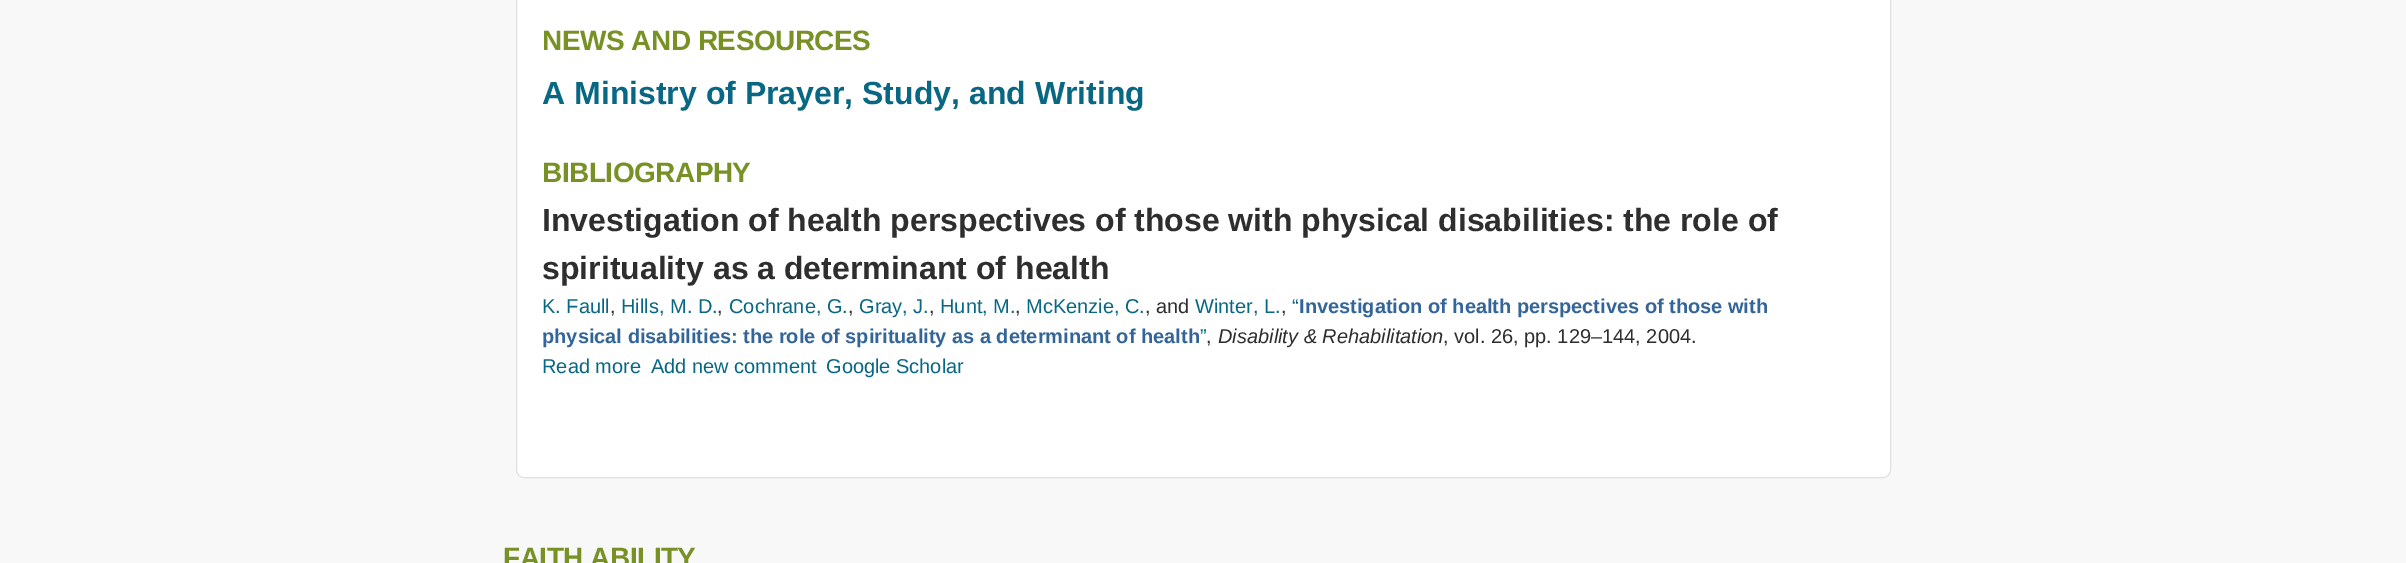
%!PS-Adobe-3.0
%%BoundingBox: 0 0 2406 563
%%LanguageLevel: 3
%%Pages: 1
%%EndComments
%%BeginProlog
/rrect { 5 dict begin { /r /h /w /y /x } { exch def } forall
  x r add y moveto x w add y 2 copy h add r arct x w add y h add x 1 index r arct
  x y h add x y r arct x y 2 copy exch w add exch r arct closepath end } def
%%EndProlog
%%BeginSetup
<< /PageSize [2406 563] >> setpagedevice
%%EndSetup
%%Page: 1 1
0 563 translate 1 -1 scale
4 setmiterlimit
0.973 setgray
0 0 2406 563 rectfill
1 setgray
516.5 -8.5 1374 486 7.5 rrect gsave fill grestore
0.882 setgray
stroke
/LiberationSans-Bold [28 0 0 -28 0 0] selectfont
0.467 0.569 0.145 setrgbcolor
542 50 moveto -0.5 0 (NEWS AND RESOURCES) ashow
/LiberationSans-Bold [32 0 0 -32 0 0] selectfont
0.031 0.404 0.51 setrgbcolor
542 104 moveto (A Ministry of Prayer, Study, and Writing) show
/LiberationSans-Bold [28 0 0 -28 0 0] selectfont
0.467 0.569 0.145 setrgbcolor
542 182 moveto -0.5 0 (BIBLIOGRAPHY) ashow
/LiberationSans-Bold [32 0 0 -32 0 0] selectfont
0.18 setgray
542 231 moveto (Investigation of health perspectives of those with physical disabilities: the role of) show
542 279 moveto (spirituality as a determinant of health) show
/LiberationSans-Regular [20 0 0 -20 0 0] selectfont
0.031 0.404 0.51 setrgbcolor
542 313 moveto (K. Faull) show
621 313 moveto (Hills, M. D.) show
729 313 moveto (Cochrane, G.) show
859 313 moveto (Gray, J.) show
940 313 moveto (Hunt, M.) show
1026 313 moveto (McKenzie, C.) show
0.18 setgray
1145 313 moveto (, and) show
0.031 0.404 0.51 setrgbcolor
1195 313 moveto (Winter, L.) show
1292 313 moveto (“) show
/LiberationSans-Bold [20 0 0 -20 0 0] selectfont
0.2 0.396 0.6 setrgbcolor
1299 313 moveto (Investigation of health perspectives of those with) show
/LiberationSans-Regular [20 0 0 -20 0 0] selectfont
0.18 setgray
610 313 moveto (,) show
717 313 moveto (,) show
848 313 moveto (,) show
929 313 moveto (,) show
1015 313 moveto (,) show
1281 313 moveto (,) show
/LiberationSans-Bold [20 0 0 -20 0 0] selectfont
0.2 0.396 0.6 setrgbcolor
542 343 moveto (physical disabilities: the role of spirituality as a determinant of health) show
/LiberationSans-Regular [20 0 0 -20 0 0] selectfont
0.031 0.404 0.51 setrgbcolor
1200 343 moveto (”) show
/LiberationSans-Italic [20 0 0 -20 0 0] selectfont
0.18 setgray
1218 343 moveto (Disability & Rehabilitation) show
/LiberationSans-Regular [20 0 0 -20 0 0] selectfont
1443 343 moveto (, vol. 26, pp. 129–144, 2004.) show
1206 343 moveto (,) show
0.031 0.404 0.51 setrgbcolor
542 373 moveto (Read more) show
651 373 moveto (Add new comment) show
826 373 moveto (Google Scholar) show
/LiberationSans-Bold [28 0 0 -28 0 0] selectfont
0.467 0.569 0.145 setrgbcolor
503 567 moveto -0.5 0 (FAITH ABILITY) ashow
showpage
%%EOF
